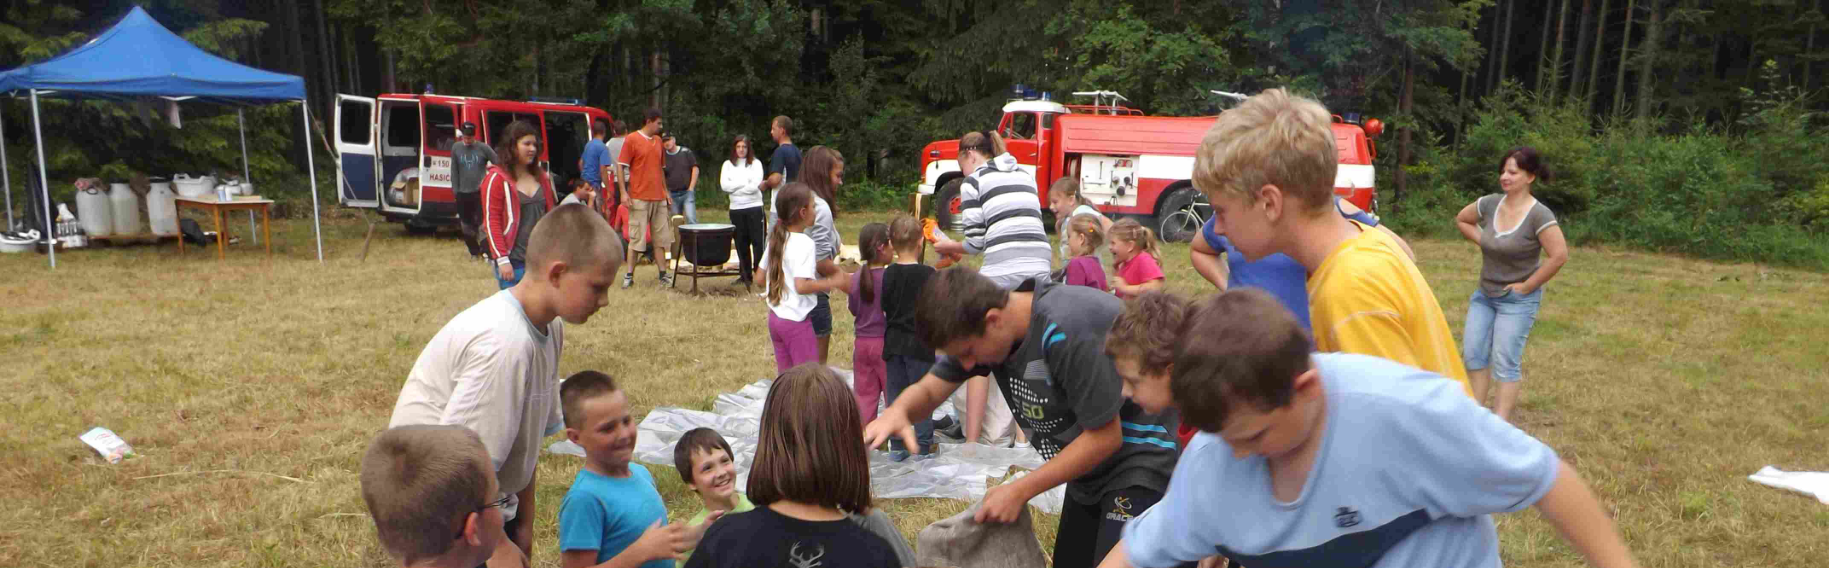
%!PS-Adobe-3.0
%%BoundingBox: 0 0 1829 568
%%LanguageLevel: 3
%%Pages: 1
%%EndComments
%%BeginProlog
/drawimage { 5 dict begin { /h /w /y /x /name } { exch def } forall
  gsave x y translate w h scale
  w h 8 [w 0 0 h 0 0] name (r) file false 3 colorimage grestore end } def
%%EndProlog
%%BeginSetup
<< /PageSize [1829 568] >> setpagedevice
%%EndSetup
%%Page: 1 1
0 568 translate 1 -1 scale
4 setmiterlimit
1 setgray
0 0 1829 568 rectfill
(images/1.raw) 0 0 1829 568 drawimage
showpage
%%EOF
